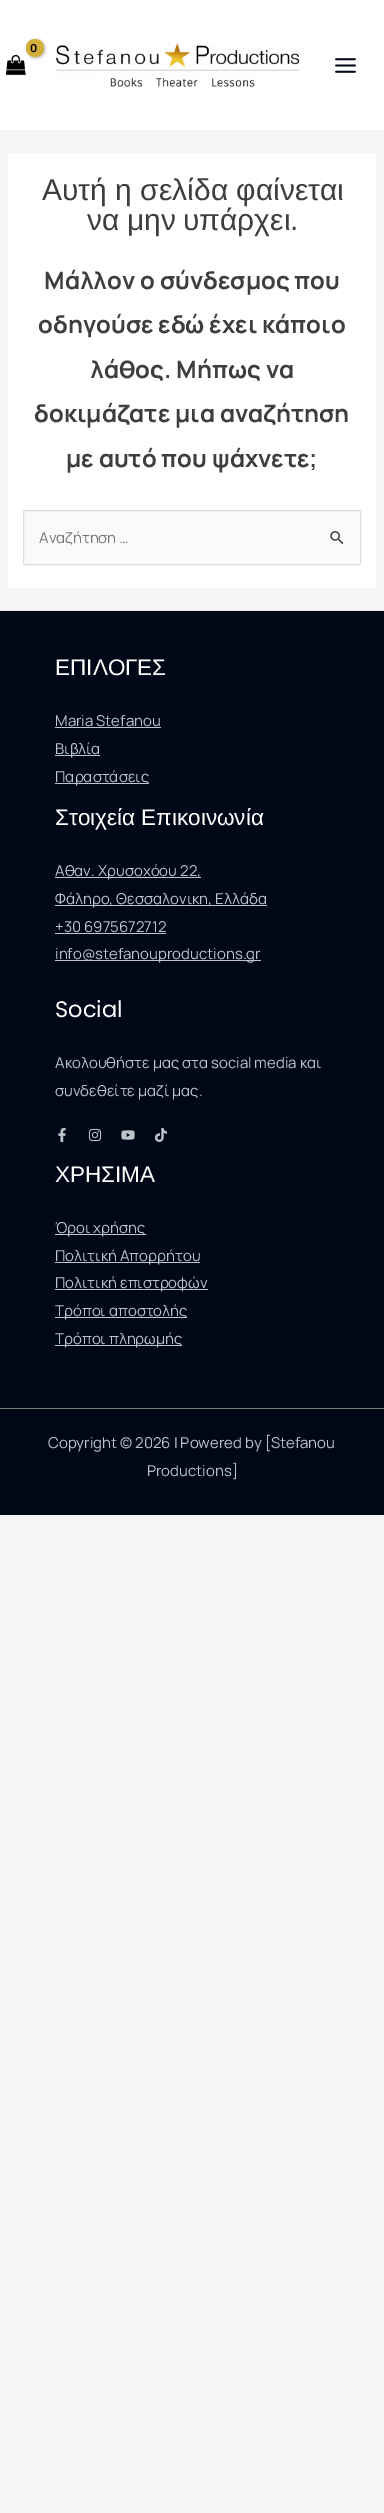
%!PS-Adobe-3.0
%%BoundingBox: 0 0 384 2513
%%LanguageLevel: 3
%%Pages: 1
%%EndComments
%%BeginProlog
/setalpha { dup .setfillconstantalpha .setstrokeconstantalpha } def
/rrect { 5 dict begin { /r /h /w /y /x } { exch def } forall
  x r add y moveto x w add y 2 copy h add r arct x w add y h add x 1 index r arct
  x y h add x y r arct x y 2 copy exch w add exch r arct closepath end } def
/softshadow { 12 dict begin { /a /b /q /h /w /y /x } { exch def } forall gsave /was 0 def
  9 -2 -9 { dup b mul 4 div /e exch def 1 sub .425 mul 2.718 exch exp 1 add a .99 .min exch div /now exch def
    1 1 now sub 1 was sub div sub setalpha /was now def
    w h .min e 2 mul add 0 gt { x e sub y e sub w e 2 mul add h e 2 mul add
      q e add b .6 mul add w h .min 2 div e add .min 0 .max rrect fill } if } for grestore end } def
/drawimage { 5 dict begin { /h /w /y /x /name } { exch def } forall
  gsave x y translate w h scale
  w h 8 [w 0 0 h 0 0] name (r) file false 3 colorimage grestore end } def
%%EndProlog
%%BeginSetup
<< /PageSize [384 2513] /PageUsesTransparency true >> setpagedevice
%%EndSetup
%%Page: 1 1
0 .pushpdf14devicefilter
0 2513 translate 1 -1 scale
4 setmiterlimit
0.961 setgray
0 0 384 2513 rectfill
1 setgray
0 0 384 130 rectfill
0.243 setgray
6 74 20 1 rectfill
(images/1.raw) 6 54 20 21 drawimage
0 setgray
27 40 18 18 9 1.5 0.3 softshadow
0.831 0.686 0.216 setrgbcolor
newpath 35 48 9 0 360 arc closepath fill
(images/2.raw) 55 43 245 44 drawimage
(images/3.raw) 335 58 21 15 drawimage
1 setgray
8 153 368 435 rectfill
0.98 setgray
23.5 510.5 337 54 1.5 rrect gsave fill grestore
0.867 setgray
stroke
(images/4.raw) 330 531 14 13 drawimage
0 0.027 0.086 setrgbcolor
0 611 384 797 rectfill
0.902 setgray
0 610 384 1 rectfill
0.745 0.769 0.788 setrgbcolor
55 727 106 1 rectfill
55 755 45 1 rectfill
55 783 94 1 rectfill
55 877 146 1 rectfill
55 905 212 1 rectfill
55 933 111 1 rectfill
55 960 206 1 rectfill
(images/5.raw) 58 1128 8 14 drawimage
(images/6.raw) 88 1128 14 14 drawimage
(images/7.raw) 121 1130 14 10 drawimage
(images/8.raw) 154 1128 14 14 drawimage
55 1234 91 1 rectfill
55 1262 145 1 rectfill
55 1289 153 1 rectfill
55 1317 132 1 rectfill
55 1345 127 1 rectfill
0 0.027 0.086 setrgbcolor
0 1409 384 106 rectfill
0.478 setgray
0 1408 384 1 rectfill
/Manrope-Bold [11 0 0 -11 0 0] selectfont
0 setgray
30 52 moveto (0) show
/LiberationSans-Regular [30 0 0 -30 0 0] selectfont
0.243 setgray
42 200 moveto (Αυτή η σελίδα φαίνεται) show
87 230 moveto -1 0 32 (να μην υπάρχει.) widthshow
/Manrope-Bold [24 0 0 -24 0 0] selectfont
44 289 moveto (Μάλλον ο σύνδεσμος που) show
38 333 moveto (οδηγούσε εδώ έχει κάποιο) show
90 378 moveto (λάθος. Μήπως να) show
34 422 moveto (δοκιμάζατε μια αναζήτηση) show
66 467 moveto (με αυτό που ψάχνετε;) show
/Manrope-Regular [15 0 0 -15 0 0] selectfont
0.459 setgray
39 543 moveto (Αναζήτηση …) show
/LiberationSans-Regular [22.5 0 0 -22.5 0 0] selectfont
1 setgray
55 675 moveto (ΕΠΙΛΟΓΕΣ) show
/Manrope-Regular [15 0 0 -15 0 0] selectfont
0.745 0.769 0.788 setrgbcolor
55 726 moveto (Maria Stefanou) show
55 754 moveto (Βιβλία) show
55 782 moveto (Παραστάσεις) show
/LiberationSans-Regular [22.5 0 0 -22.5 0 0] selectfont
1 setgray
55 825 moveto (Στοιχεία Επικοινωνία) show
/Manrope-Regular [15 0 0 -15 0 0] selectfont
0.745 0.769 0.788 setrgbcolor
55 876 moveto (Αθαν. Χρυσοχόου 22,) show
55 904 moveto (Φάληρο, Θεσσαλονικη, Ελλάδα) show
55 932 moveto (+30 6975672712) show
55 959 moveto (info@stefanouproductions.gr) show
/Poppins-Regular [22.5 0 0 -22.5 0 0] selectfont
1 setgray
55 1017 moveto (Social) show
/Manrope-Regular [15 0 0 -15 0 0] selectfont
0.745 0.769 0.788 setrgbcolor
55 1068 moveto (Ακολουθήστε μας στα social media και) show
55 1096 moveto (συνδεθείτε μαζί μας.) show
/LiberationSans-Regular [22.5 0 0 -22.5 0 0] selectfont
1 setgray
55 1182 moveto (ΧΡΗΣΙΜΑ) show
/Manrope-Regular [15 0 0 -15 0 0] selectfont
0.745 0.769 0.788 setrgbcolor
55 1233 moveto (Όροι χρήσης) show
55 1261 moveto (Πολιτική Απορρήτου) show
55 1288 moveto (Πολιτική επιστροφών) show
55 1316 moveto (Τρόποι αποστολής) show
55 1344 moveto (Τρόποι πληρωμής) show
48 1448 moveto (Copyright © 2026 | Powered by [Stefanou) show
147 1476 moveto (Productions]) show
.poppdf14devicefilter showpage
%%EOF
